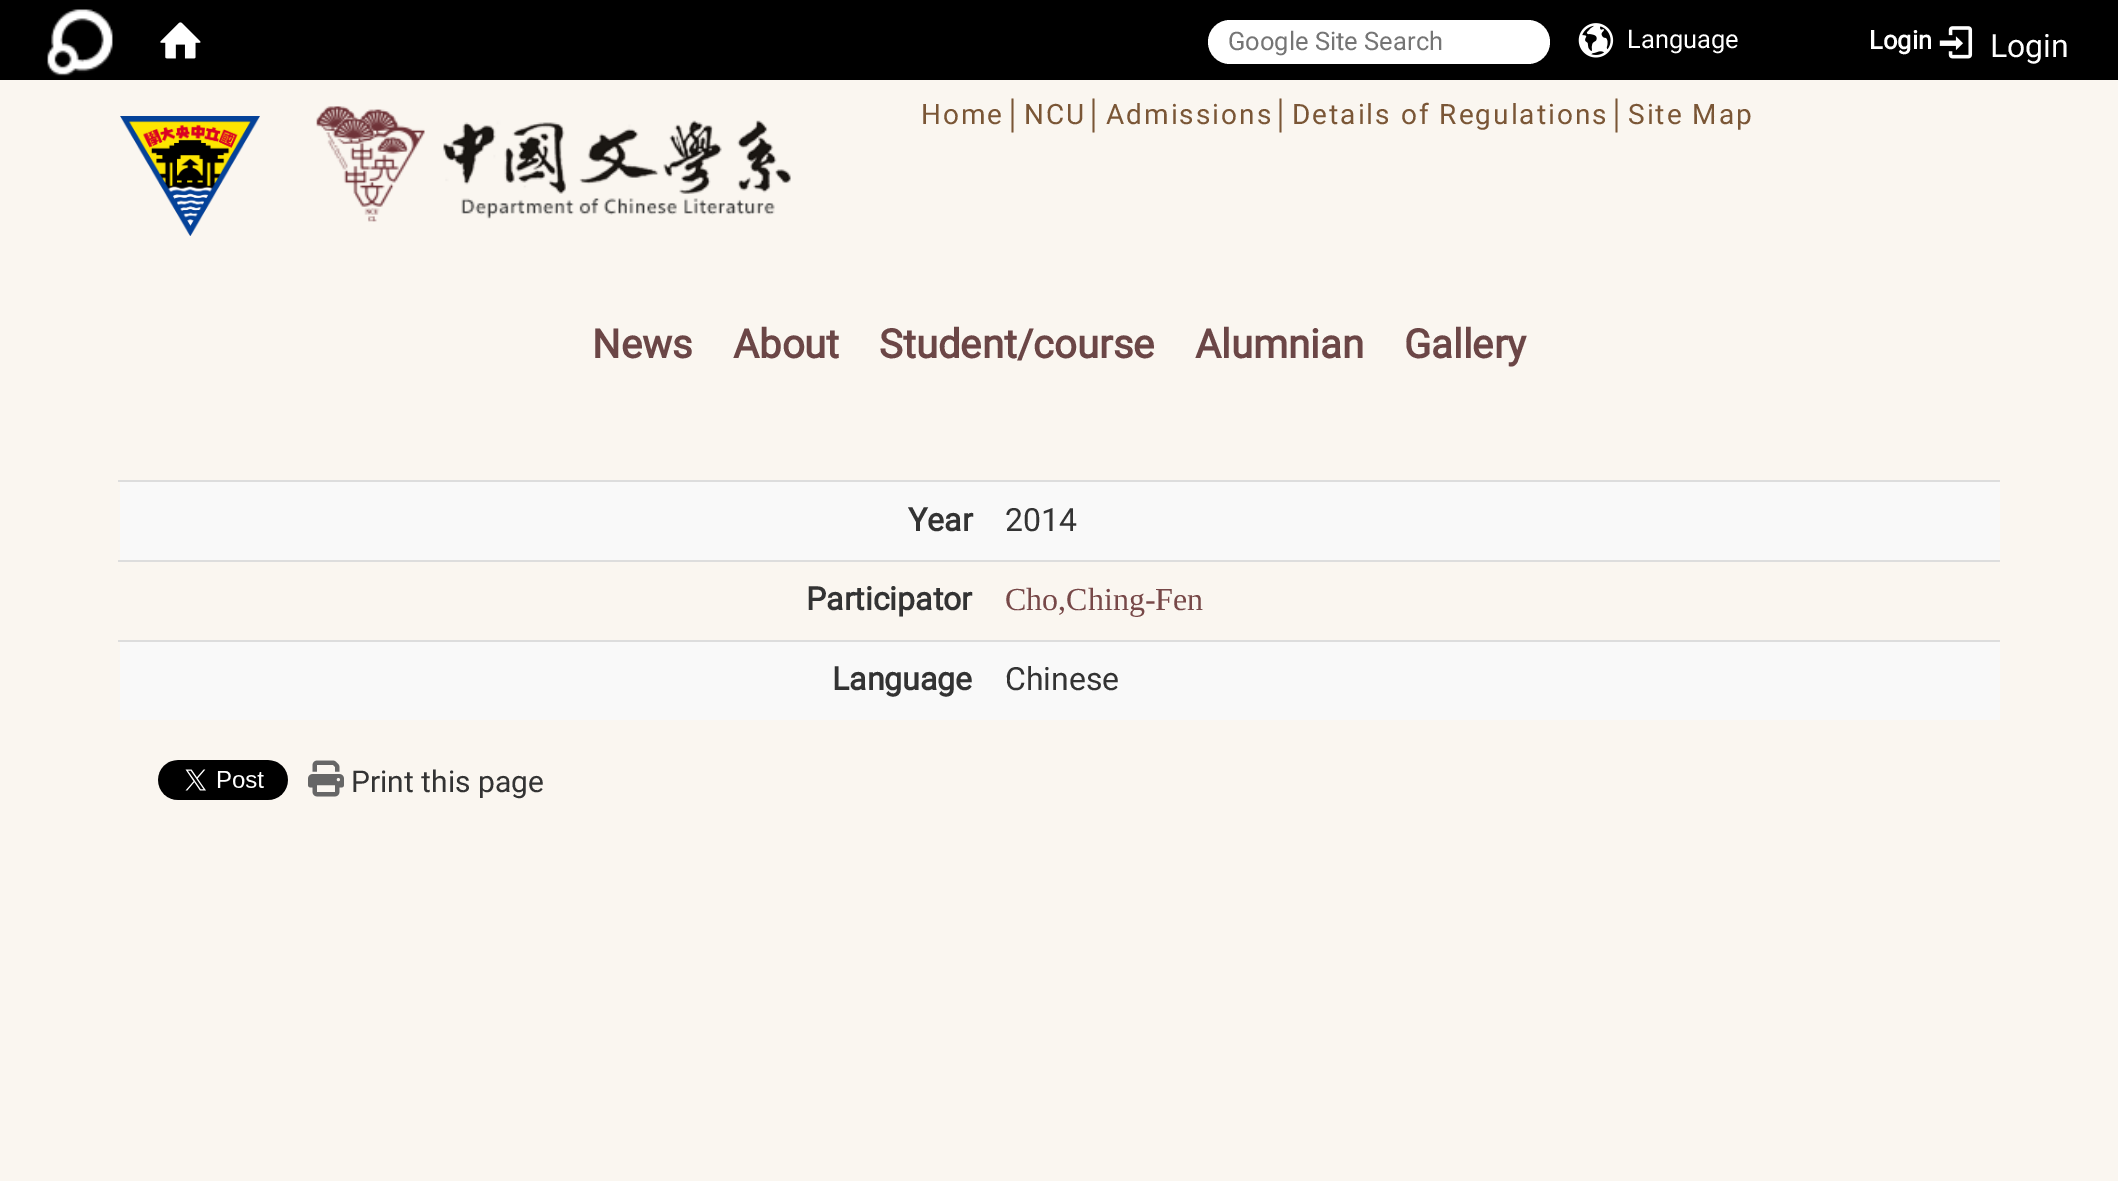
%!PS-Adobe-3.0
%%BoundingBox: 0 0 2118 1181
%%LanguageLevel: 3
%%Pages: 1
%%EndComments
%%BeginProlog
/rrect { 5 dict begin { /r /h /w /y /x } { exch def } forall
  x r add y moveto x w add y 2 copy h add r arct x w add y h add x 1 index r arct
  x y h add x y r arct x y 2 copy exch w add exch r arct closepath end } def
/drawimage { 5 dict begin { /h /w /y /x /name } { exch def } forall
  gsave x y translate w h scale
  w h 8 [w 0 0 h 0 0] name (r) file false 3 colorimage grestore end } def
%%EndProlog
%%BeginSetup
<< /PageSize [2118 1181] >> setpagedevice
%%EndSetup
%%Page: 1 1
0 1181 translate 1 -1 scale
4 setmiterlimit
0.98 0.965 0.941 setrgbcolor
0 0 2118 1181 rectfill
0 setgray
0 0 2118 80 rectfill
(images/1.raw) 47 9 66 67 drawimage
(images/2.raw) 160 22 41 37 drawimage
1 setgray
1208 20 342 44 22 rrect fill
(images/3.raw) 1578 23 36 35 drawimage
(images/4.raw) 1939 26 34 33 drawimage
(images/5.raw) 120 116 140 120 drawimage
(images/6.raw) 316 106 475 116 drawimage
0.976 setgray
120 482 1880 78 rectfill
0.867 setgray
118 480 1882 2 rectfill
118 560 1882 2 rectfill
0.976 setgray
120 642 1880 78 rectfill
0.867 setgray
118 640 1882 2 rectfill
(images/7.raw) 158 760 130 40 drawimage
(images/8.raw) 308 760 36 37 drawimage
/Roboto-Regular [25.5 0 0 -25.5 0 0] selectfont
0.459 setgray
1228 50 moveto (Google Site Search) show
1 setgray
1627 48 moveto (Language) show
/Roboto-Bold [25.5 0 0 -25.5 0 0] selectfont
1869 49 moveto (Login) show
/Roboto-Regular [32 0 0 -32 0 0] selectfont
1990 57 moveto (Login) show
/Roboto-Regular [28 0 0 -28 0 0] selectfont
0.478 0.337 0.212 setrgbcolor
921 124 moveto 2 0 (Home) ashow
/LiberationSans-Regular [28 0 0 -28 0 0] selectfont
1005 124 moveto 2 0 (│) ashow
/Roboto-Regular [28 0 0 -28 0 0] selectfont
1024 124 moveto 2 0 (NCU) ashow
/LiberationSans-Regular [28 0 0 -28 0 0] selectfont
1086 124 moveto 2 0 (│) ashow
/Roboto-Regular [28 0 0 -28 0 0] selectfont
1106 124 moveto 2 0 (Admissions) ashow
/LiberationSans-Regular [28 0 0 -28 0 0] selectfont
1273 124 moveto 2 0 (│) ashow
/Roboto-Regular [28 0 0 -28 0 0] selectfont
1292 124 moveto 2 0 (Details of Regulations) ashow
/LiberationSans-Regular [28 0 0 -28 0 0] selectfont
1609 124 moveto 2 0 (│) ashow
/Roboto-Regular [28 0 0 -28 0 0] selectfont
1628 124 moveto 2 0 (Site Map) ashow
/Roboto-Bold [40 0 0 -40 0 0] selectfont
0.42 0.275 0.275 setrgbcolor
592 358 moveto (News) show
733 358 moveto (About) show
879 358 moveto (Student/course) show
1195 358 moveto (Alumnian) show
1404 358 moveto (Gallery) show
/Roboto-Bold [32 0 0 -32 0 0] selectfont
0.2 setgray
908 531 moveto (Year) show
/Roboto-Regular [32 0 0 -32 0 0] selectfont
1005 531 moveto (2014) show
/Roboto-Bold [32 0 0 -32 0 0] selectfont
806 610 moveto (Participator) show
/LiberationSerif-Regular [32 0 0 -32 0 0] selectfont
0.467 0.282 0.282 setrgbcolor
1005 610 moveto (Cho,Ching-Fen) show
/Roboto-Bold [32 0 0 -32 0 0] selectfont
0.2 setgray
832 690 moveto (Language) show
/Roboto-Regular [32 0 0 -32 0 0] selectfont
1005 690 moveto (Chinese) show
/Roboto-Regular [30 0 0 -30 0 0] selectfont
351 792 moveto (Print this page) show
showpage
%%EOF
